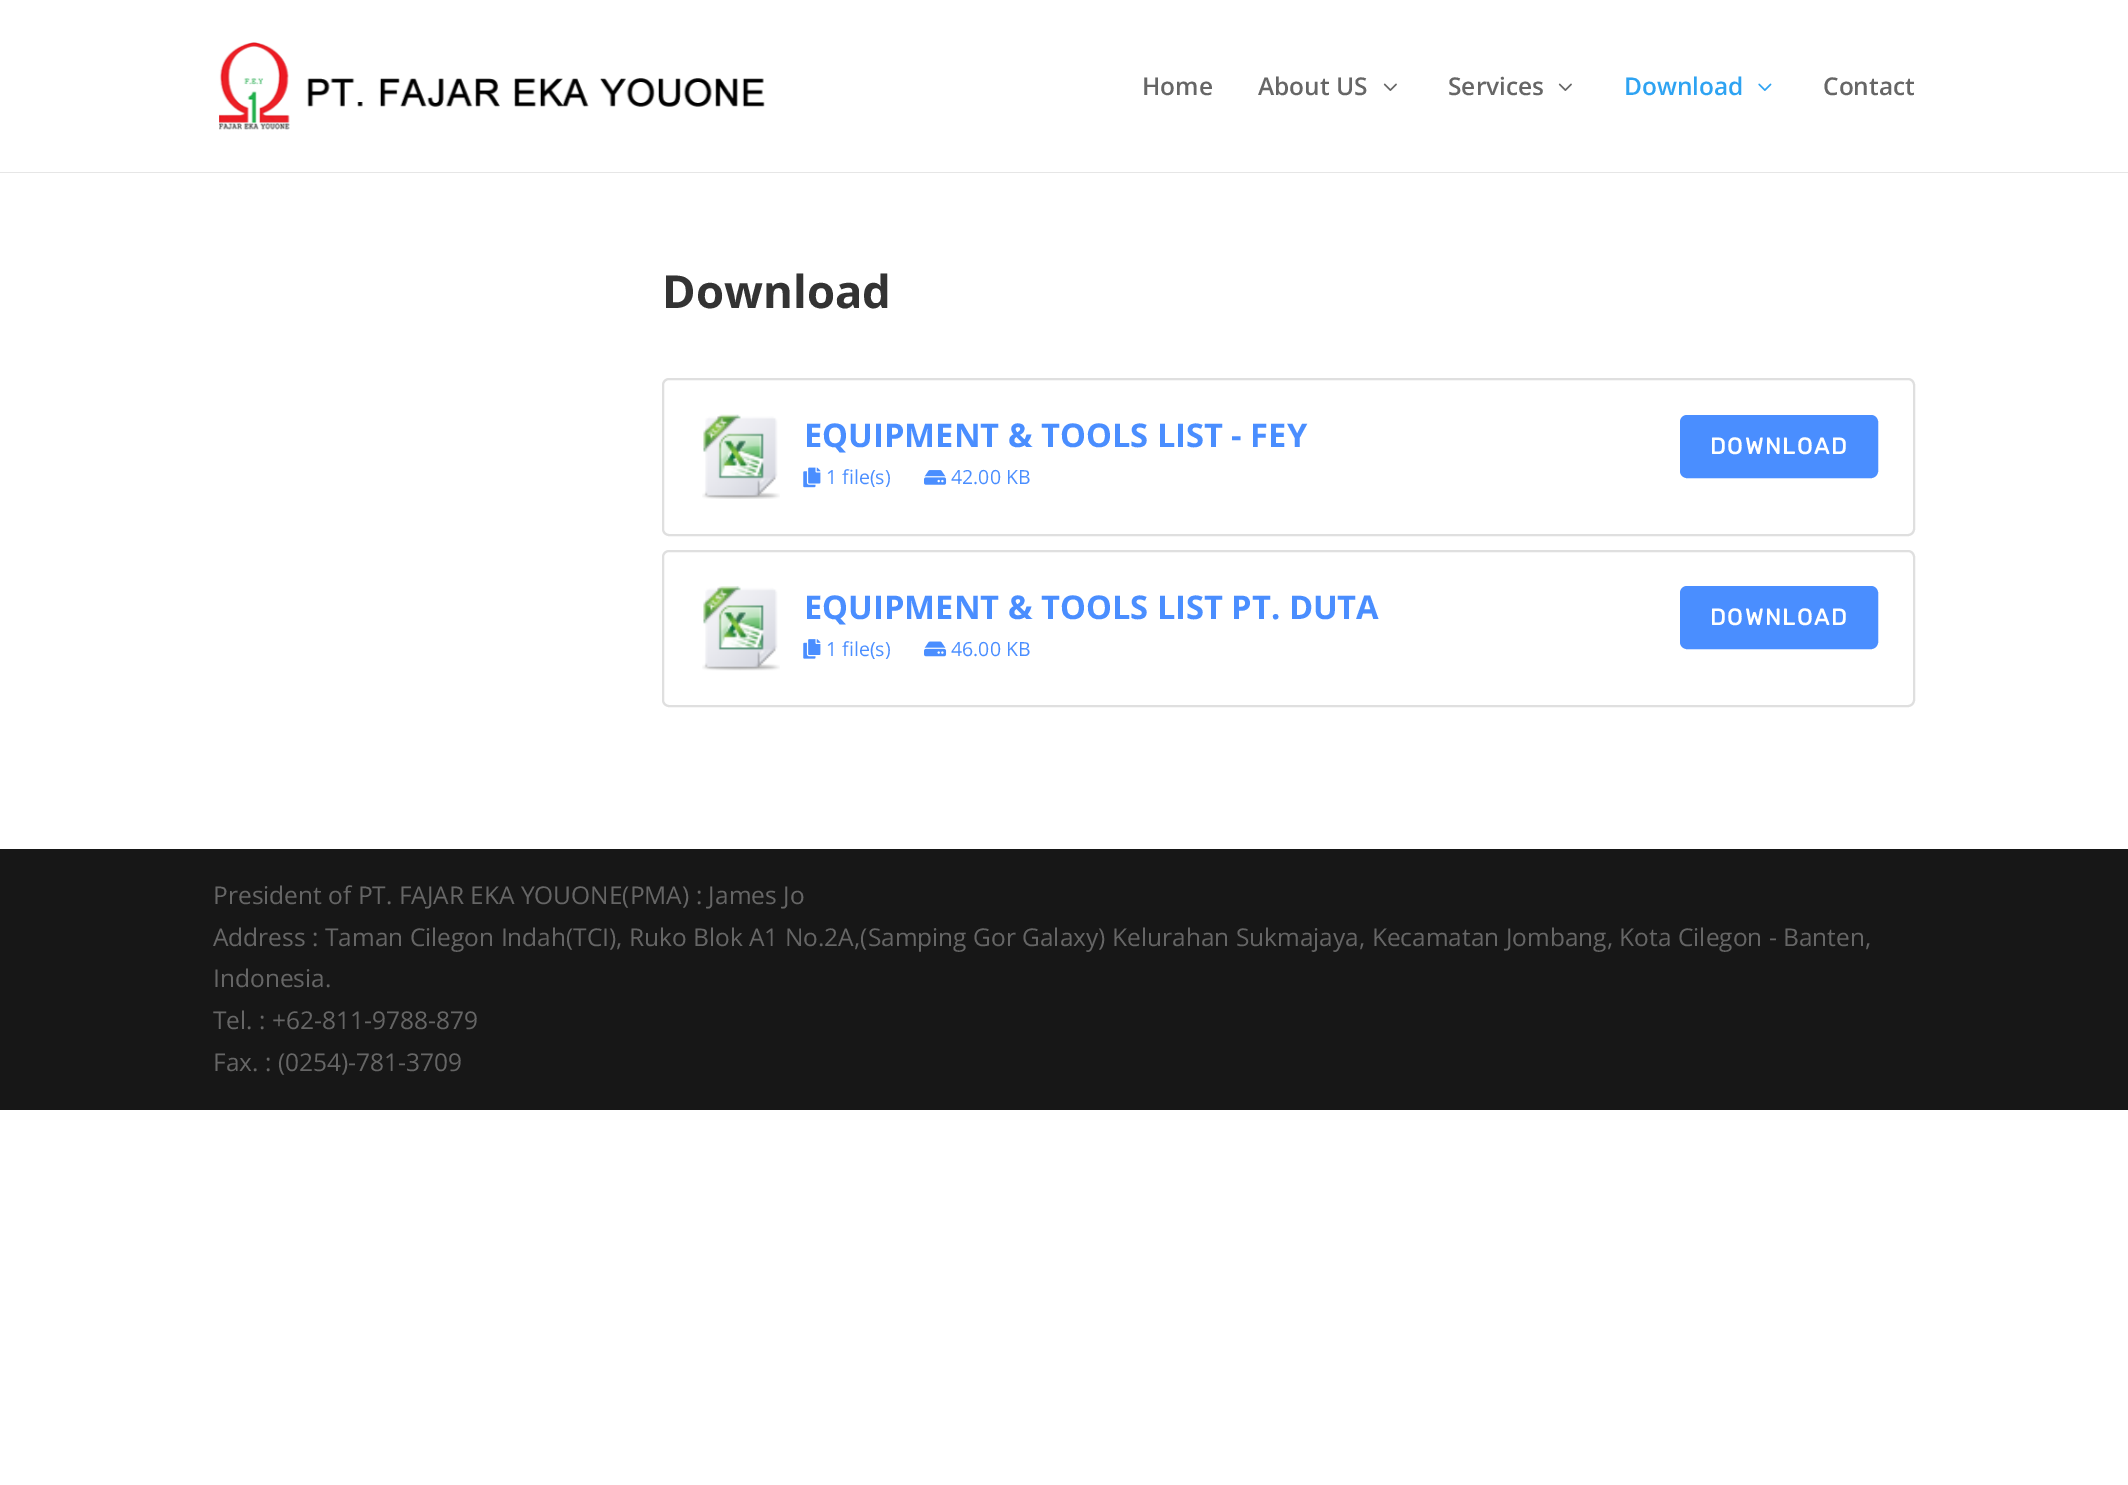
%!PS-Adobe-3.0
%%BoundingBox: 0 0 2128 1485
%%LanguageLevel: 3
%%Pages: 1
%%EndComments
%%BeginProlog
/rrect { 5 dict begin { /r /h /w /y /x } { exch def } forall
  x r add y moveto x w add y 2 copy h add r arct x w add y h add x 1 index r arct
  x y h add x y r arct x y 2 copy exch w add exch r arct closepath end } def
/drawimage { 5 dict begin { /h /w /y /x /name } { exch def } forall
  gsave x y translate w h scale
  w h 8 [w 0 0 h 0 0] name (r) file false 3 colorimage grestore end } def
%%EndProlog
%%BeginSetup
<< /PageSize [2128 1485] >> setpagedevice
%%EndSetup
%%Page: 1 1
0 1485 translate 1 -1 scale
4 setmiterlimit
1 setgray
0 0 2128 1485 rectfill
0.902 setgray
0 172 2128 1 rectfill
(images/1.raw) 219 42 546 88 drawimage
(images/2.raw) 1383 83 14 8 drawimage
(images/2.raw) 1558 83 14 8 drawimage
(images/3.raw) 1758 83 14 8 drawimage
0.875 setgray
2 setlinewidth
663 379 1251 156 6 rrect stroke
(images/4.raw) 702 414 78 85 drawimage
(images/5.raw) 803 467 18 21 drawimage
(images/6.raw) 924 470 23 15 drawimage
0.29 0.557 1 setrgbcolor
1681 416 196 61 6 rrect gsave fill grestore
stroke
0.875 setgray
663 551 1251 155 6 rrect stroke
(images/7.raw) 702 586 78 85 drawimage
(images/8.raw) 803 639 18 20 drawimage
(images/9.raw) 924 641 23 16 drawimage
0.29 0.557 1 setrgbcolor
1681 587 196 61 6 rrect gsave fill grestore
stroke
0.09 setgray
0 849 2128 261 rectfill
/OpenSans-SemiBold [24.5 0 0 -24.5 0 0] selectfont
0.4 setgray
1142 95 moveto (Home) show
1258 95 moveto (About US) show
1448 95 moveto (Services) show
0.18 0.639 0.949 setrgbcolor
1624 95 moveto (Download) show
0.4 setgray
1823 95 moveto (Contact) show
/OpenSans-Bold [45.5 0 0 -45.5 0 0] selectfont
0.2 setgray
662 308 moveto (Download) show
/OpenSans-Bold [32.7 0 0 -32.7 0 0] selectfont
0.29 0.557 1 setrgbcolor
804 447 moveto (EQUIPMENT & TOOLS LIST - FEY) show
/OpenSans-Regular [19.5 0 0 -19.5 0 0] selectfont
826 484 moveto (1 file\(s\)) show
951 484 moveto (42.00 KB) show
/Rubik-Bold [22.75 0 0 -22.75 0 0] selectfont
1 setgray
1710 454 moveto 1.75 0 (DOWNLOAD) ashow
/OpenSans-Bold [32.7 0 0 -32.7 0 0] selectfont
0.29 0.557 1 setrgbcolor
804 619 moveto (EQUIPMENT & TOOLS LIST PT. DUTA) show
/OpenSans-Regular [19.5 0 0 -19.5 0 0] selectfont
826 656 moveto (1 file\(s\)) show
951 656 moveto (46.00 KB) show
/Rubik-Bold [22.75 0 0 -22.75 0 0] selectfont
1 setgray
1710 625 moveto 1.75 0 (DOWNLOAD) ashow
/OpenSans-Regular [24.5 0 0 -24.5 0 0] selectfont
0.4 setgray
213 904 moveto (President of PT. FAJAR EKA YOUONE\(PMA\) : James Jo) show
213 946 moveto (Address : Taman Cilegon Indah\(TCI\), Ruko Blok A1 No.2A,\(Samping Gor Galaxy\) Kelurahan Sukmajaya, Kecamatan Jombang, Kota Cilegon - Banten,) show
213 987 moveto (Indonesia.) show
213 1029 moveto (Tel. : +62-811-9788-879) show
213 1071 moveto (Fax. : \(0254\)-781-3709) show
showpage
%%EOF
